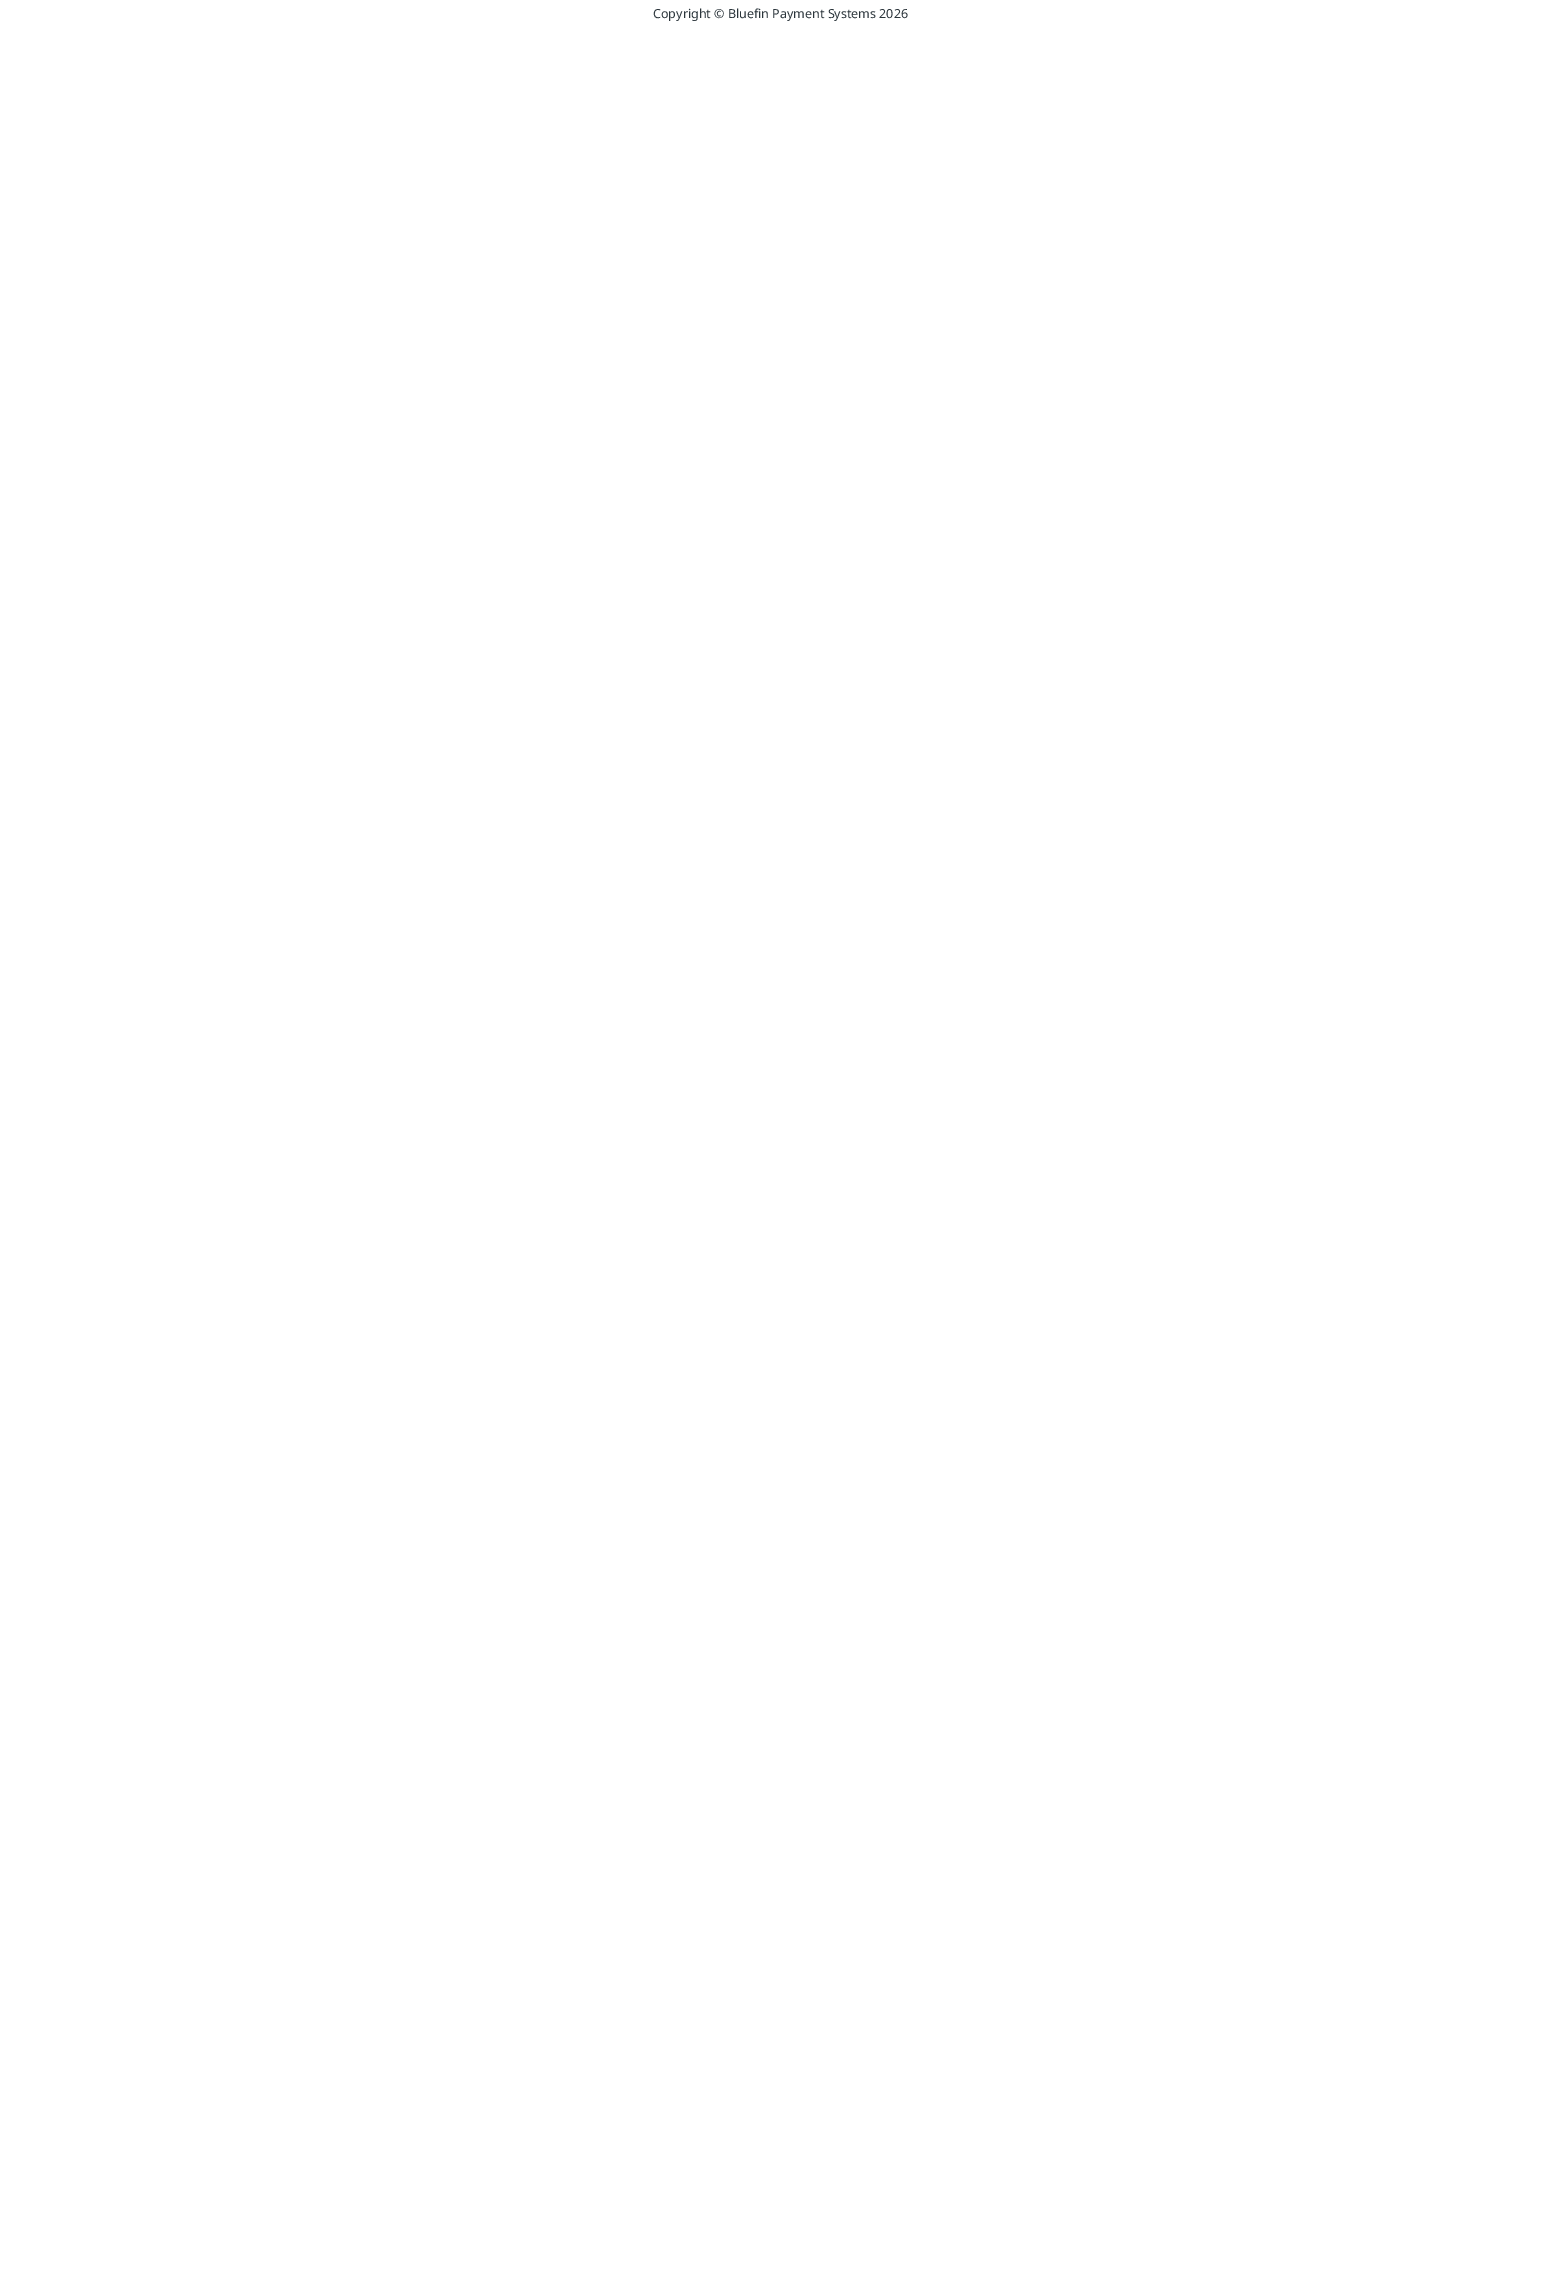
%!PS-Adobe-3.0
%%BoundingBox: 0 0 1559 2273
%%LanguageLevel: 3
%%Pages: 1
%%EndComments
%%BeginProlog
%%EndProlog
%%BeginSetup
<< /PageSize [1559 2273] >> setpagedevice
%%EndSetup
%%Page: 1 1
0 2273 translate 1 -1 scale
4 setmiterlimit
1 setgray
0 0 1559 2273 rectfill
/NotoSans-Regular [12.5 0 0 -12.5 0 0] selectfont
0.169 0.208 0.231 setrgbcolor
653 18 moveto (Copyright © Bluefin Payment Systems 2026) show
showpage
%%EOF
